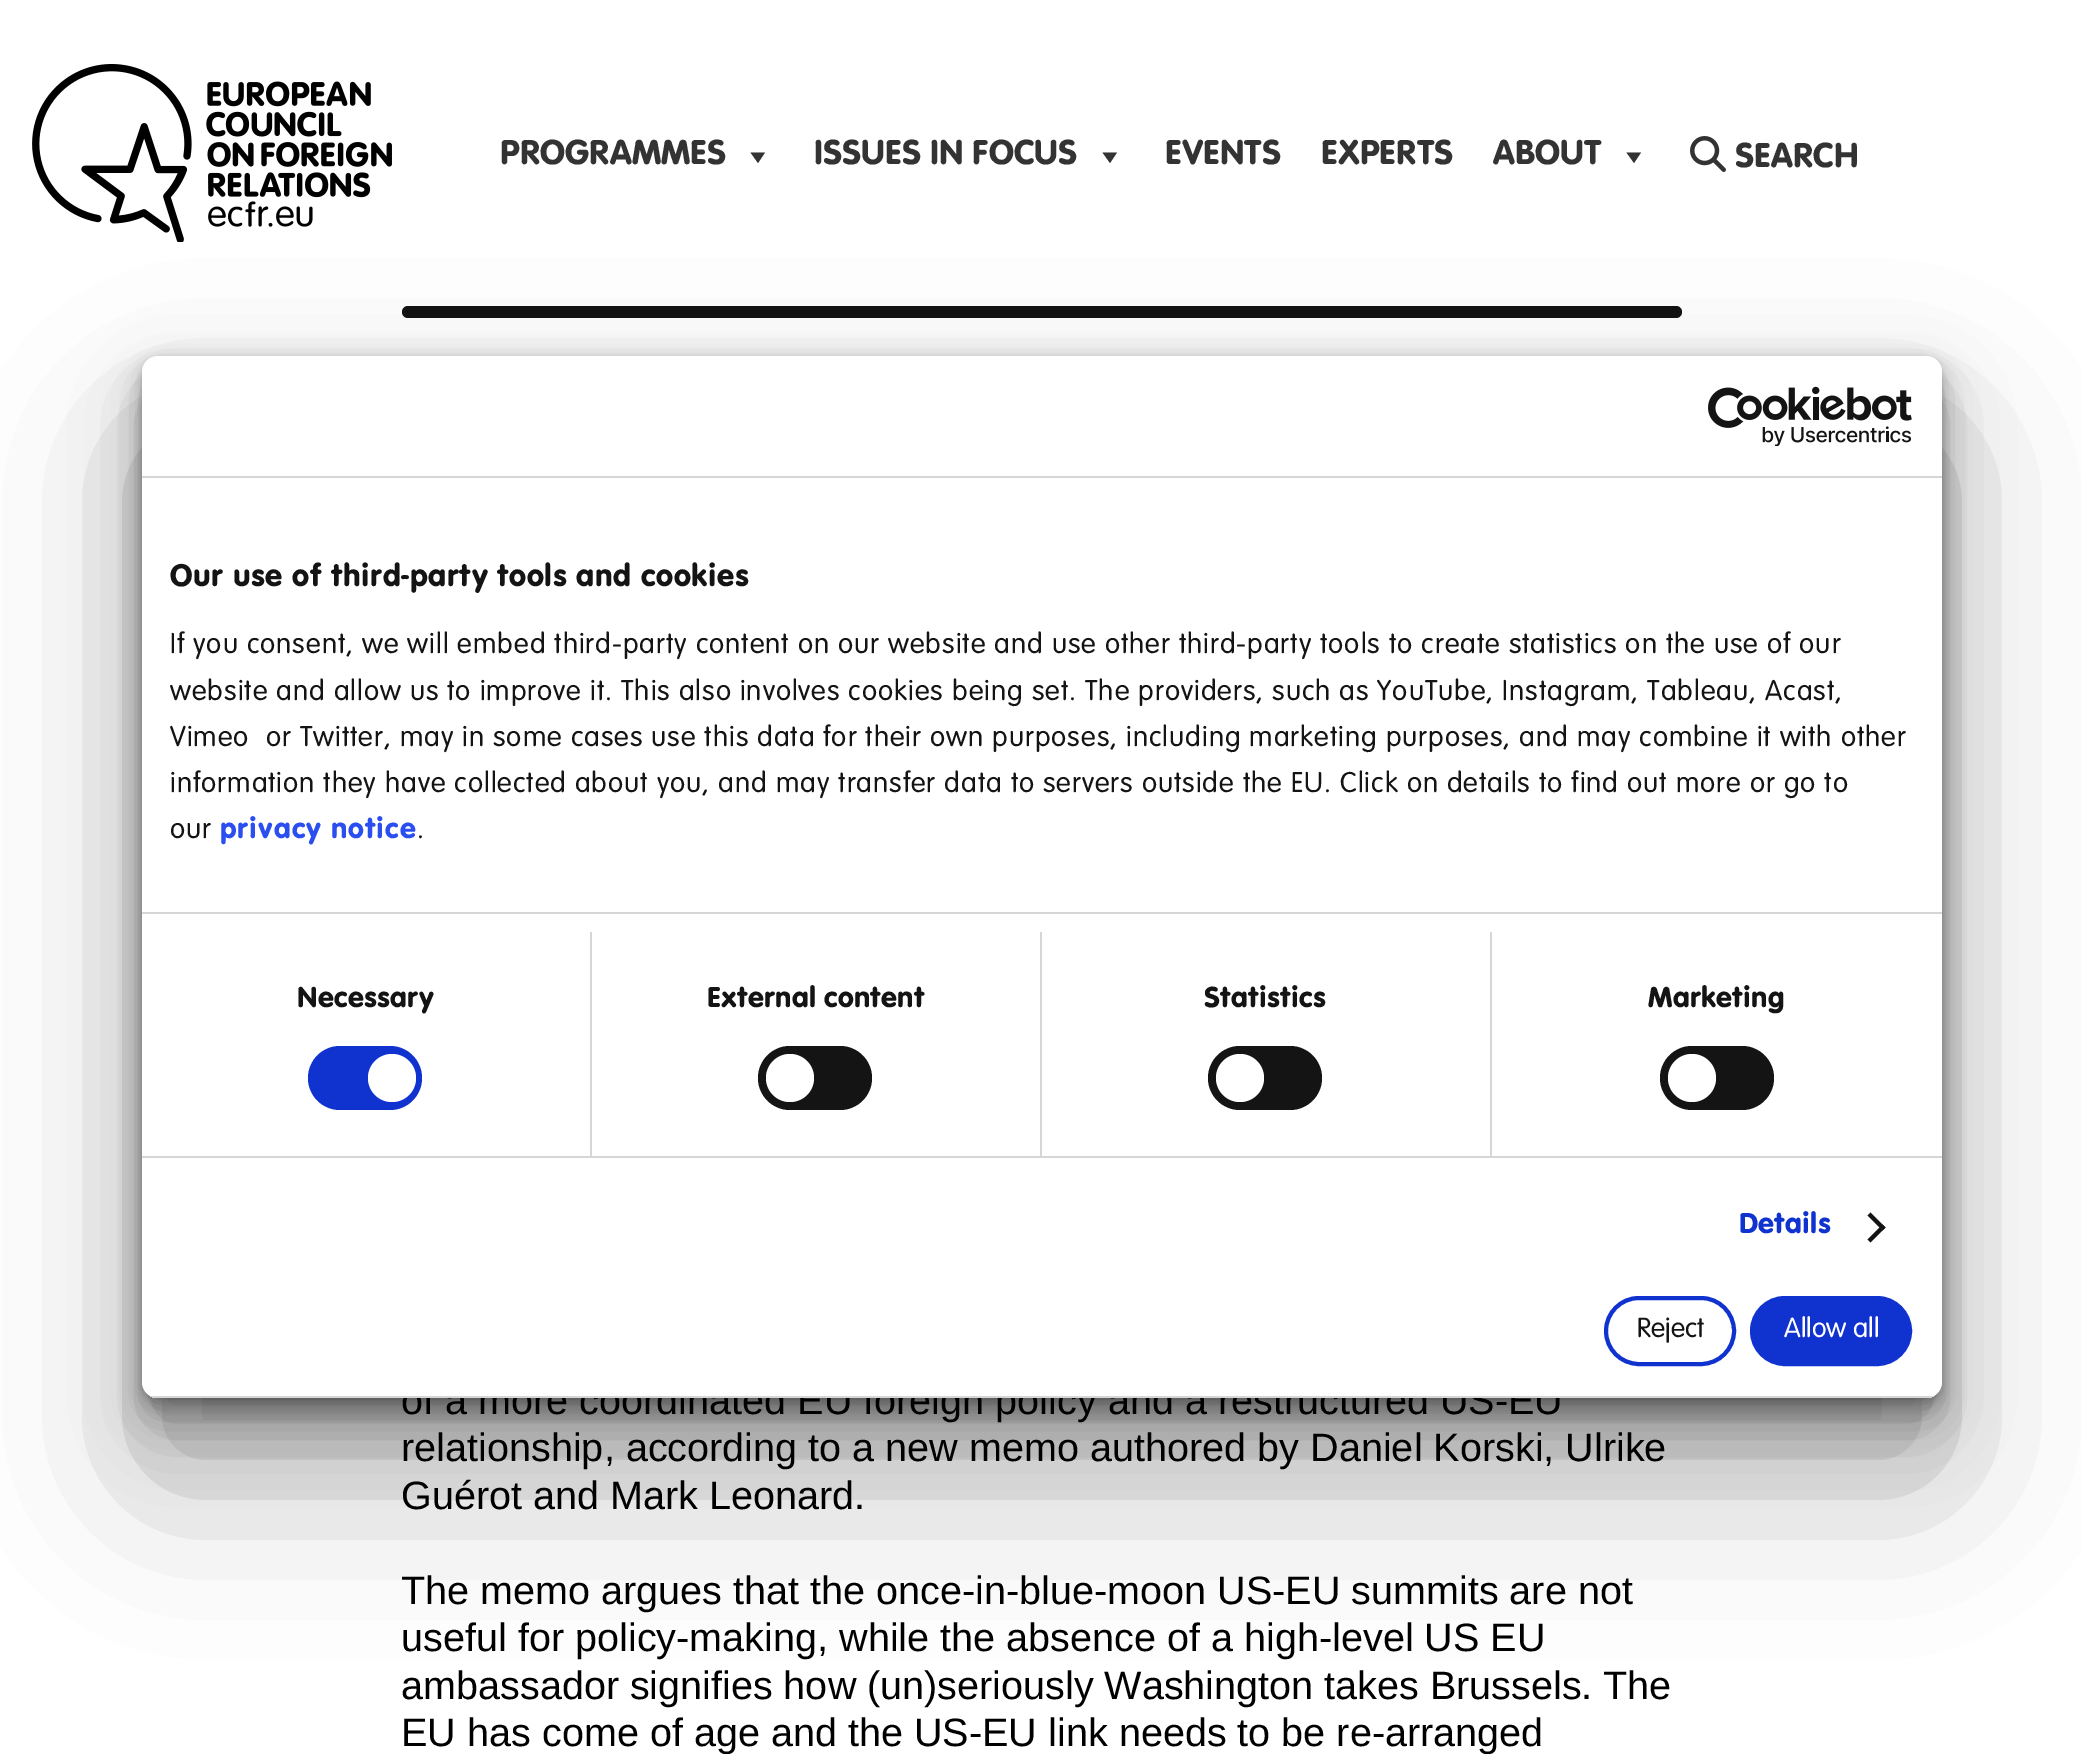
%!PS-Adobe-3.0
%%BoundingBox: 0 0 2081 1754
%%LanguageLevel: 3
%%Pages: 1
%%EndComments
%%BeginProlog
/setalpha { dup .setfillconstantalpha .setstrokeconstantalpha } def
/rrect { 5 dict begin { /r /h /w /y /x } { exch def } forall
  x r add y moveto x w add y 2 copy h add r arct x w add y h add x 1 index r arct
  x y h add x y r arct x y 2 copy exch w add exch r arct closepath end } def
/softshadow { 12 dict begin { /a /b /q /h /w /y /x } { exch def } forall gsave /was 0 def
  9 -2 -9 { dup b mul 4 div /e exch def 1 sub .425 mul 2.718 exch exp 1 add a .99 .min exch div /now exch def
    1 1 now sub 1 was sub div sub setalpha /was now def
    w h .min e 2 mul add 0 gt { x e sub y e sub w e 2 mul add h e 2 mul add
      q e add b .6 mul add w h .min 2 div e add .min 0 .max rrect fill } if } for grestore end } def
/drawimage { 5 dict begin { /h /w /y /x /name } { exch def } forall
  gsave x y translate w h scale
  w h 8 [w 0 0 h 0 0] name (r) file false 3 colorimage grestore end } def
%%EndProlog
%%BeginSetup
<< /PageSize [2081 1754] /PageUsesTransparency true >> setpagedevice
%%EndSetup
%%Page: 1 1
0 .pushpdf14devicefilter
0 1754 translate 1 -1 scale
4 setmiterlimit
1 setgray
0 0 2081 1754 rectfill
(images/1.raw) 32 64 360 178 drawimage
0.2 setgray
newpath 765 152.5 moveto 758 163 lineto 750.5 152.5 lineto closepath fill
newpath 1117 152.5 moveto 1110 163 lineto 1102.5 152.5 lineto closepath fill
newpath 1641 152.5 moveto 1634 163 lineto 1626.5 152.5 lineto closepath fill
(images/2.raw) 1690 136 36 36 drawimage
0.071 setgray
402 306 1280 12 6 rrect fill
0 setgray
142 438 1800 1042 16 80 0.3 softshadow
142 390 1800 1042 16 33.5 0.22 softshadow
142 376 1800 1042 16 18 0.18 softshadow
142 366 1800 1042 16 10 0.15 softshadow
142 362 1800 1042 16 5.5 0.12 softshadow
142 358 1800 1042 16 2 0.08 softshadow
/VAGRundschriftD-Regular [36 0 0 -36 0 0] selectfont
0.2 setgray
500 164 moveto (PROGRAMMES) show
814 164 moveto (ISSUES IN FOCUS) show
1165 164 moveto (EVENTS) show
1321 164 moveto (EXPERTS) show
1493 164 moveto (ABOUT) show
1735 167 moveto (SEARCH) show
/LiberationSans-Regular [39.6 0 0 -39.6 0 0] selectfont
0 setgray
401 1414 moveto (of a more coordinated EU foreign policy and a restructured US-EU) show
1 setgray
142 356 1800 1042 16 rrect fill
0.063 0.196 0.812 setrgbcolor
1752 1298 158 66 33 rrect gsave fill grestore
4 setlinewidth
stroke
/VAGRundschriftD-Light [29 0 0 -29 0 0] selectfont
1 setgray
1784 1337 moveto (Allow all) show
0.063 0.196 0.812 setrgbcolor
1606 1298 128 66 33 rrect stroke
0.078 setgray
1637 1337 moveto (Reject) show
gsave
142 356 1800 1042 16 rrect clip newpath
0.839 setgray
142 1396 1800 2 rectfill
grestore
newpath 1870.5 1212.5 moveto 1885.5 1227.5 lineto 1882.5 1230.5 lineto 1867.5 1215.5 lineto closepath fill
newpath 1882.5 1224.5 moveto 1885.5 1227.5 lineto 1870.5 1242.5 lineto 1867.5 1239.5 lineto closepath fill
1660 1046 114 64 32 rrect fill
1 setgray
newpath 1692 1078 24 0 360 arc closepath fill
0.078 setgray
1208 1046 114 64 32 rrect fill
1 setgray
newpath 1240 1078 24 0 360 arc closepath fill
0.078 setgray
758 1046 114 64 32 rrect fill
1 setgray
newpath 790 1078 24 0 360 arc closepath fill
0.063 0.196 0.812 setrgbcolor
308 1046 114 64 32 rrect fill
1 setgray
newpath 392 1078 24 0 360 arc closepath fill
/VAGRundschriftD-Light [30 0 0 -30 0 0] selectfont
0.078 setgray
417 838 moveto 1 0 (.) ashow
/VAGRundschriftD-Regular [30 0 0 -30 0 0] selectfont
0.165 0.306 0.937 setrgbcolor
220 838 moveto 1 0 (privacy notice) ashow
/VAGRundschriftD-Light [30 0 0 -30 0 0] selectfont
0.078 setgray
170 838 moveto 1 0 (our) ashow
170 792 moveto 1 0 (information they have collected about you, and may transfer data to servers outside the EU. Click on details to find out more or go to) ashow
170 746 moveto 1 0 (Vimeo  or Twitter, may in some cases use this data for their own purposes, including marketing purposes, and may combine it with other) ashow
170 700 moveto 1 0 (website and allow us to improve it. This also involves cookies being set. The providers, such as YouTube, Instagram, Tableau, Acast,) ashow
170 653 moveto 1 0 (If you consent, we will embed third-party content on our website and use other third-party tools to create statistics on the use of our) ashow
/VAGRundschriftD-Regular [32.4 0 0 -32.4 0 0] selectfont
170 586 moveto 0.65 0 (Our use of third-party tools and cookies) ashow
0.839 setgray
142 912 1800 2 rectfill
/VAGRundschriftD-Regular [30 0 0 -30 0 0] selectfont
0.063 0.196 0.812 setrgbcolor
1739 1233 moveto 0.25 0 (Details) ashow
0.078 setgray
1648 1007 moveto 0.25 0 (Marketing) ashow
1204 1007 moveto 0.25 0 (Statistics) ashow
0.839 setgray
1490 932 2 224 rectfill
0.078 setgray
707 1007 moveto 0.25 0 (External content) ashow
0.839 setgray
1040 932 2 224 rectfill
0.078 setgray
297 1007 moveto 0.25 0 (Necessary) ashow
0.839 setgray
590 932 2 224 rectfill
142 1156 1800 2 rectfill
(images/3.raw) 1708 386 204 60 drawimage
142 476 1800 2 rectfill
/LiberationSans-Regular [39.6 0 0 -39.6 0 0] selectfont
0 setgray
401 1461 moveto (relationship, according to a new memo authored by Daniel Korski, Ulrike) show
401 1509 moveto (Guérot and Mark Leonard.) show
401 1604 moveto -0.1 0 32 (The memo argues that the once-in-blue-moon US-EU summits are not) widthshow
401 1651 moveto (useful for policy-making, while the absence of a high-level US EU) show
401 1699 moveto -0.25 0 32 (ambassador signifies how \(un\)seriously Washington takes Brussels. The) widthshow
401 1746 moveto (EU has come of age and the US-EU link needs to be re-arranged) show
.poppdf14devicefilter showpage
%%EOF
